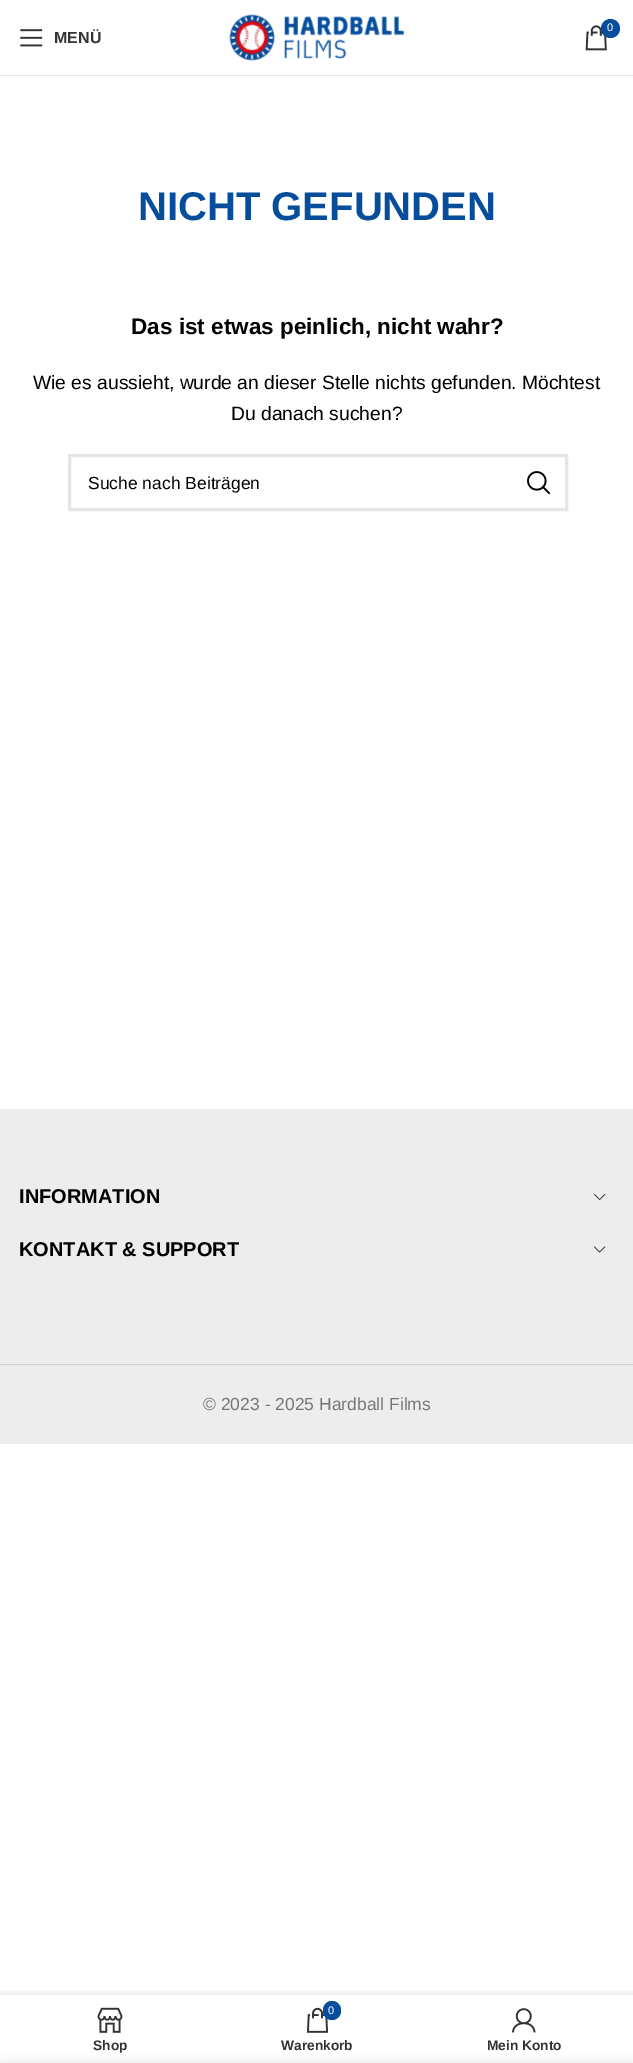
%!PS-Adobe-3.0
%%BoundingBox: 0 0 633 2063
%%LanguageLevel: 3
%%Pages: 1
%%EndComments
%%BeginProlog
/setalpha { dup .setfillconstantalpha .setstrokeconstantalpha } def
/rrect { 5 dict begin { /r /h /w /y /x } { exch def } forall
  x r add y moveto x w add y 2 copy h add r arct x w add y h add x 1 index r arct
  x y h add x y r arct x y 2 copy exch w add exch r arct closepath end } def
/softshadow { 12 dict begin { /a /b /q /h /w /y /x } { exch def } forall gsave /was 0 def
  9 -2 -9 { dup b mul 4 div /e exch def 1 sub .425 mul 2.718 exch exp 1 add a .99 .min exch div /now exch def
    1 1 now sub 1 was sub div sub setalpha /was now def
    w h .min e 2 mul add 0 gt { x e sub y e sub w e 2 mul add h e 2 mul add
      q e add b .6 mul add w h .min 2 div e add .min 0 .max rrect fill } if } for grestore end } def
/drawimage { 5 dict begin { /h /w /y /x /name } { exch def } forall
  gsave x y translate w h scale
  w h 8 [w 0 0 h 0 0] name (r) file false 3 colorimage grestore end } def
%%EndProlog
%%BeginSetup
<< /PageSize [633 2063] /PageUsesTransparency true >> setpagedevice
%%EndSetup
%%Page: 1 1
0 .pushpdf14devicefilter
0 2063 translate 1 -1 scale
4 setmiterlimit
1 setgray
0 0 633 2063 rectfill
0.902 setgray
0 75 633 1 rectfill
(images/1.raw) 229 14 175 47 drawimage
(images/2.raw) 585 25 22 26 drawimage
0.024 0.306 0.612 setrgbcolor
newpath 610.5 28.5 9.5 0 360 arc closepath fill
(images/3.raw) 20 29 23 18 drawimage
0.902 setgray
3 setlinewidth
69.5 455.5 497 54 rectstroke
(images/4.raw) 527 471 24 24 drawimage
0.929 setgray
0 1109 633 335 rectfill
(images/5.raw) 593 1193 13 8 drawimage
(images/6.raw) 593 1246 13 7 drawimage
0.831 setgray
0 1364 633 1 rectfill
gsave
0 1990 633 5 rectclip
0 setgray
0 1995 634 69 0 5.5 0.12 softshadow
grestore
(images/7.raw) 97 2007 26 26 drawimage
(images/8.raw) 306 2007 23 26 drawimage
0.024 0.306 0.612 setrgbcolor
323 2001 18 19 9 rrect fill
(images/9.raw) 512 2008 24 25 drawimage
0 setgray
0 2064 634 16 0 5.5 0.14 softshadow
/LiberationSans-Regular [11 0 0 -11 0 0] selectfont
1 setgray
607 31 moveto (0) show
/LiberationSans-Bold [16 0 0 -16 0 0] selectfont
0.2 setgray
54 43 moveto (MENÜ) show
/LiberationSans-Bold [40 0 0 -40 0 0] selectfont
0.024 0.306 0.612 setrgbcolor
138 220 moveto (NICHT GEFUNDEN) show
/LiberationSans-Bold [22.5 0 0 -22.5 0 0] selectfont
0 setgray
131 334 moveto (Das ist etwas peinlich, nicht wahr?) show
/LiberationSans-Regular [19.25 0 0 -19.25 0 0] selectfont
33 389 moveto (Wie es aussieht, wurde an dieser Stelle nichts gefunden. Möchtest) show
231 420 moveto (Du danach suchen?) show
/LiberationSans-Regular [17.5 0 0 -17.5 0 0] selectfont
88 489 moveto (Suche nach Beiträgen) show
/LiberationSans-Bold [20 0 0 -20 0 0] selectfont
19 1203 moveto (INFORMATION) show
19 1256 moveto (KONTAKT & SUPPORT) show
/LiberationSans-Regular [17.5 0 0 -17.5 0 0] selectfont
0.463 setgray
203 1410 moveto (© 2023 - 2025 Hardball Films) show
/LiberationSans-Bold [13.75 0 0 -13.75 0 0] selectfont
0.2 setgray
93 2050 moveto (Shop) show
/LiberationSans-Regular [11 0 0 -11 0 0] selectfont
1 setgray
328 2014 moveto (0) show
/LiberationSans-Bold [13.75 0 0 -13.75 0 0] selectfont
0.2 setgray
281 2050 moveto (Warenkorb) show
487 2050 moveto (Mein Konto) show
.poppdf14devicefilter showpage
%%EOF
